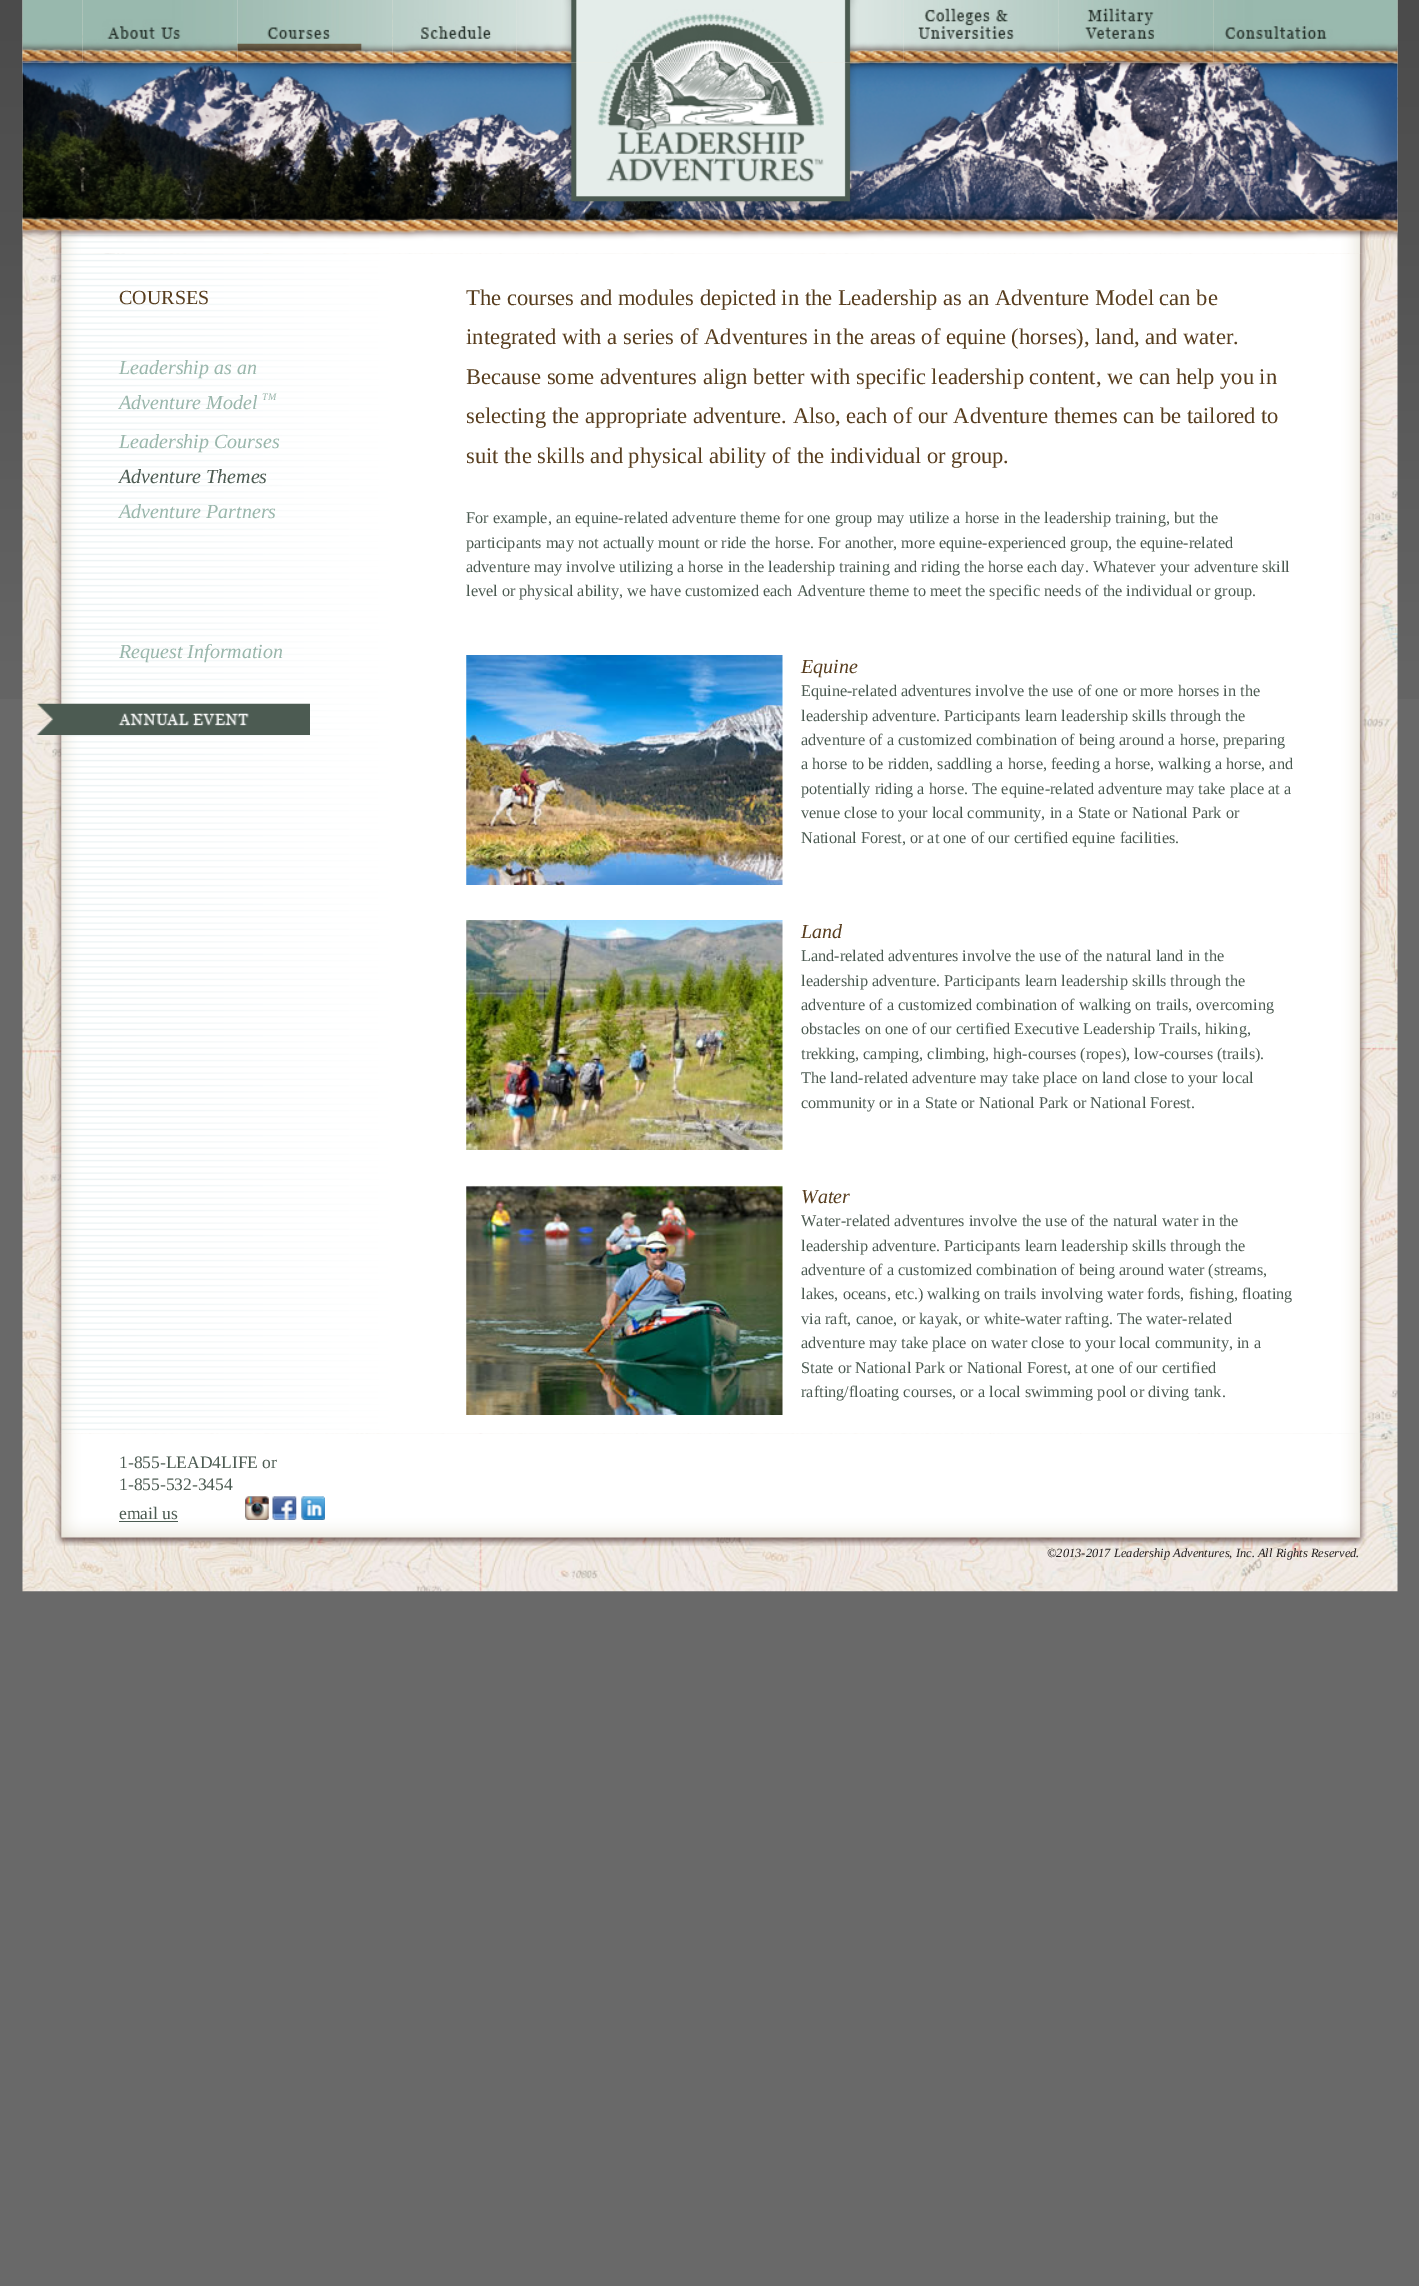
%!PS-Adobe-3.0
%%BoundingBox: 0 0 1419 2286
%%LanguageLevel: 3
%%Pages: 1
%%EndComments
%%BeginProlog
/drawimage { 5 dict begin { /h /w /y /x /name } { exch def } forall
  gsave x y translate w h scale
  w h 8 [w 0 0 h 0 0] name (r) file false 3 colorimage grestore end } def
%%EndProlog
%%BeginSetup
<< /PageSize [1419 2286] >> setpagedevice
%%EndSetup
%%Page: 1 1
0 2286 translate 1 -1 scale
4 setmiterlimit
0.412 setgray
0 0 1419 2286 rectfill
(images/1.raw) 0 0 1419 699 drawimage
(images/2.raw) 22 0 1376 1592 drawimage
(images/11.raw) 22 62 1376 192 drawimage
(images/3.raw) 22 0 61 63 drawimage
(images/4.raw) 82 0 156 63 drawimage
(images/5.raw) 237 0 156 63 drawimage
(images/6.raw) 392 0 125 63 drawimage
(images/7.raw) 516 0 388 63 drawimage
(images/8.raw) 903 0 156 63 drawimage
(images/9.raw) 1058 0 156 63 drawimage
(images/10.raw) 1213 0 185 63 drawimage
(images/12.raw) 54 253 1313 1181 drawimage
(images/13.raw) 36 703 274 32 drawimage
(images/14.raw) 466 655 317 230 drawimage
(images/15.raw) 466 920 317 230 drawimage
(images/16.raw) 466 1185 317 230 drawimage
(images/17.raw) 55 1433 1312 113 drawimage
0.298 0.357 0.322 setrgbcolor
119 1521 59 1 rectfill
(images/18.raw) 245 1496 24 24 drawimage
(images/19.raw) 272 1496 25 24 drawimage
(images/20.raw) 301 1496 24 24 drawimage
/LiberationSerif-Regular [20 0 0 -20 0 0] selectfont
0.341 0.239 0.118 setrgbcolor
119 304 moveto (COURSES) show
/LiberationSerif-Italic [20 0 0 -20 0 0] selectfont
0.6 0.714 0.671 setrgbcolor
119 374 moveto (Leadership as an) show
119 409 moveto (Adventure Model) show
/LiberationSerif-Italic [10 0 0 -10 0 0] selectfont
262 400 moveto (TM) show
/LiberationSerif-Italic [20 0 0 -20 0 0] selectfont
119 448 moveto (Leadership Courses) show
0.298 0.357 0.322 setrgbcolor
119 483 moveto (Adventure Themes) show
0.6 0.714 0.671 setrgbcolor
119 518 moveto (Adventure Partners) show
119 658 moveto (Request Information) show
/LiberationSerif-Regular [22.5 0 0 -22.5 0 0] selectfont
0.341 0.239 0.118 setrgbcolor
466 305 moveto (The courses and modules depicted in the Leadership as an Adventure Model can be) show
466 344 moveto (integrated with a series of Adventures in the areas of equine \(horses\), land, and water.) show
466 384 moveto (Because some adventures align better with specific leadership content, we can help you in) show
466 423 moveto (selecting the appropriate adventure. Also, each of our Adventure themes can be tailored to) show
466 463 moveto (suit the skills and physical ability of the individual or group.) show
/LiberationSerif-Regular [16.25 0 0 -16.25 0 0] selectfont
0.298 0.357 0.322 setrgbcolor
466 523 moveto (For example, an equine-related adventure theme for one group may utilize a horse in the leadership training, but the) show
466 548 moveto (participants may not actually mount or ride the horse. For another, more equine-experienced group, the equine-related) show
466 572 moveto (adventure may involve utilizing a horse in the leadership training and riding the horse each day. Whatever your adventure skill) show
466 596 moveto (level or physical ability, we have customized each Adventure theme to meet the specific needs of the individual or group.) show
/LiberationSerif-Italic [20 0 0 -20 0 0] selectfont
0.341 0.239 0.118 setrgbcolor
801 673 moveto (Equine) show
/LiberationSerif-Regular [16.25 0 0 -16.25 0 0] selectfont
0.298 0.357 0.322 setrgbcolor
801 696 moveto (Equine-related adventures involve the use of one or more horses in the) show
801 721 moveto (leadership adventure. Participants learn leadership skills through the) show
801 745 moveto (adventure of a customized combination of being around a horse, preparing) show
801 769 moveto (a horse to be ridden, saddling a horse, feeding a horse, walking a horse, and) show
801 794 moveto (potentially riding a horse. The equine-related adventure may take place at a) show
801 818 moveto (venue close to your local community, in a State or National Park or) show
801 843 moveto (National Forest, or at one of our certified equine facilities.) show
/LiberationSerif-Italic [20 0 0 -20 0 0] selectfont
0.341 0.239 0.118 setrgbcolor
801 938 moveto (Land) show
/LiberationSerif-Regular [16.25 0 0 -16.25 0 0] selectfont
0.298 0.357 0.322 setrgbcolor
801 961 moveto (Land-related adventures involve the use of the natural land in the) show
801 986 moveto (leadership adventure. Participants learn leadership skills through the) show
801 1010 moveto (adventure of a customized combination of walking on trails, overcoming) show
801 1034 moveto (obstacles on one of our certified Executive Leadership Trails, hiking,) show
801 1059 moveto (trekking, camping, climbing, high-courses \(ropes\), low-courses \(trails\).) show
801 1083 moveto (The land-related adventure may take place on land close to your local) show
801 1108 moveto (community or in a State or National Park or National Forest.) show
/LiberationSerif-Italic [20 0 0 -20 0 0] selectfont
0.341 0.239 0.118 setrgbcolor
801 1203 moveto (Water) show
/LiberationSerif-Regular [16.25 0 0 -16.25 0 0] selectfont
0.298 0.357 0.322 setrgbcolor
801 1226 moveto (Water-related adventures involve the use of the natural water in the) show
801 1251 moveto (leadership adventure. Participants learn leadership skills through the) show
801 1275 moveto (adventure of a customized combination of being around water \(streams,) show
801 1299 moveto (lakes, oceans, etc.\) walking on trails involving water fords, fishing, floating) show
801 1324 moveto (via raft, canoe, or kayak, or white-water rafting. The water-related) show
801 1348 moveto (adventure may take place on water close to your local community, in a) show
801 1373 moveto (State or National Park or National Forest, at one of our certified) show
801 1397 moveto (rafting/floating courses, or a local swimming pool or diving tank.) show
/LiberationSerif-Regular [17.5 0 0 -17.5 0 0] selectfont
119 1468 moveto (1-855-LEAD4LIFE or) show
119 1490 moveto (1-855-532-3454) show
119 1519 moveto (email us) show
/LiberationSerif-Italic [12.5 0 0 -12.5 0 0] selectfont
0.137 0.122 0.125 setrgbcolor
1047 1557 moveto (©2013-2017 Leadership Adventures, Inc. All Rights Reserved.) show
showpage
%%EOF
